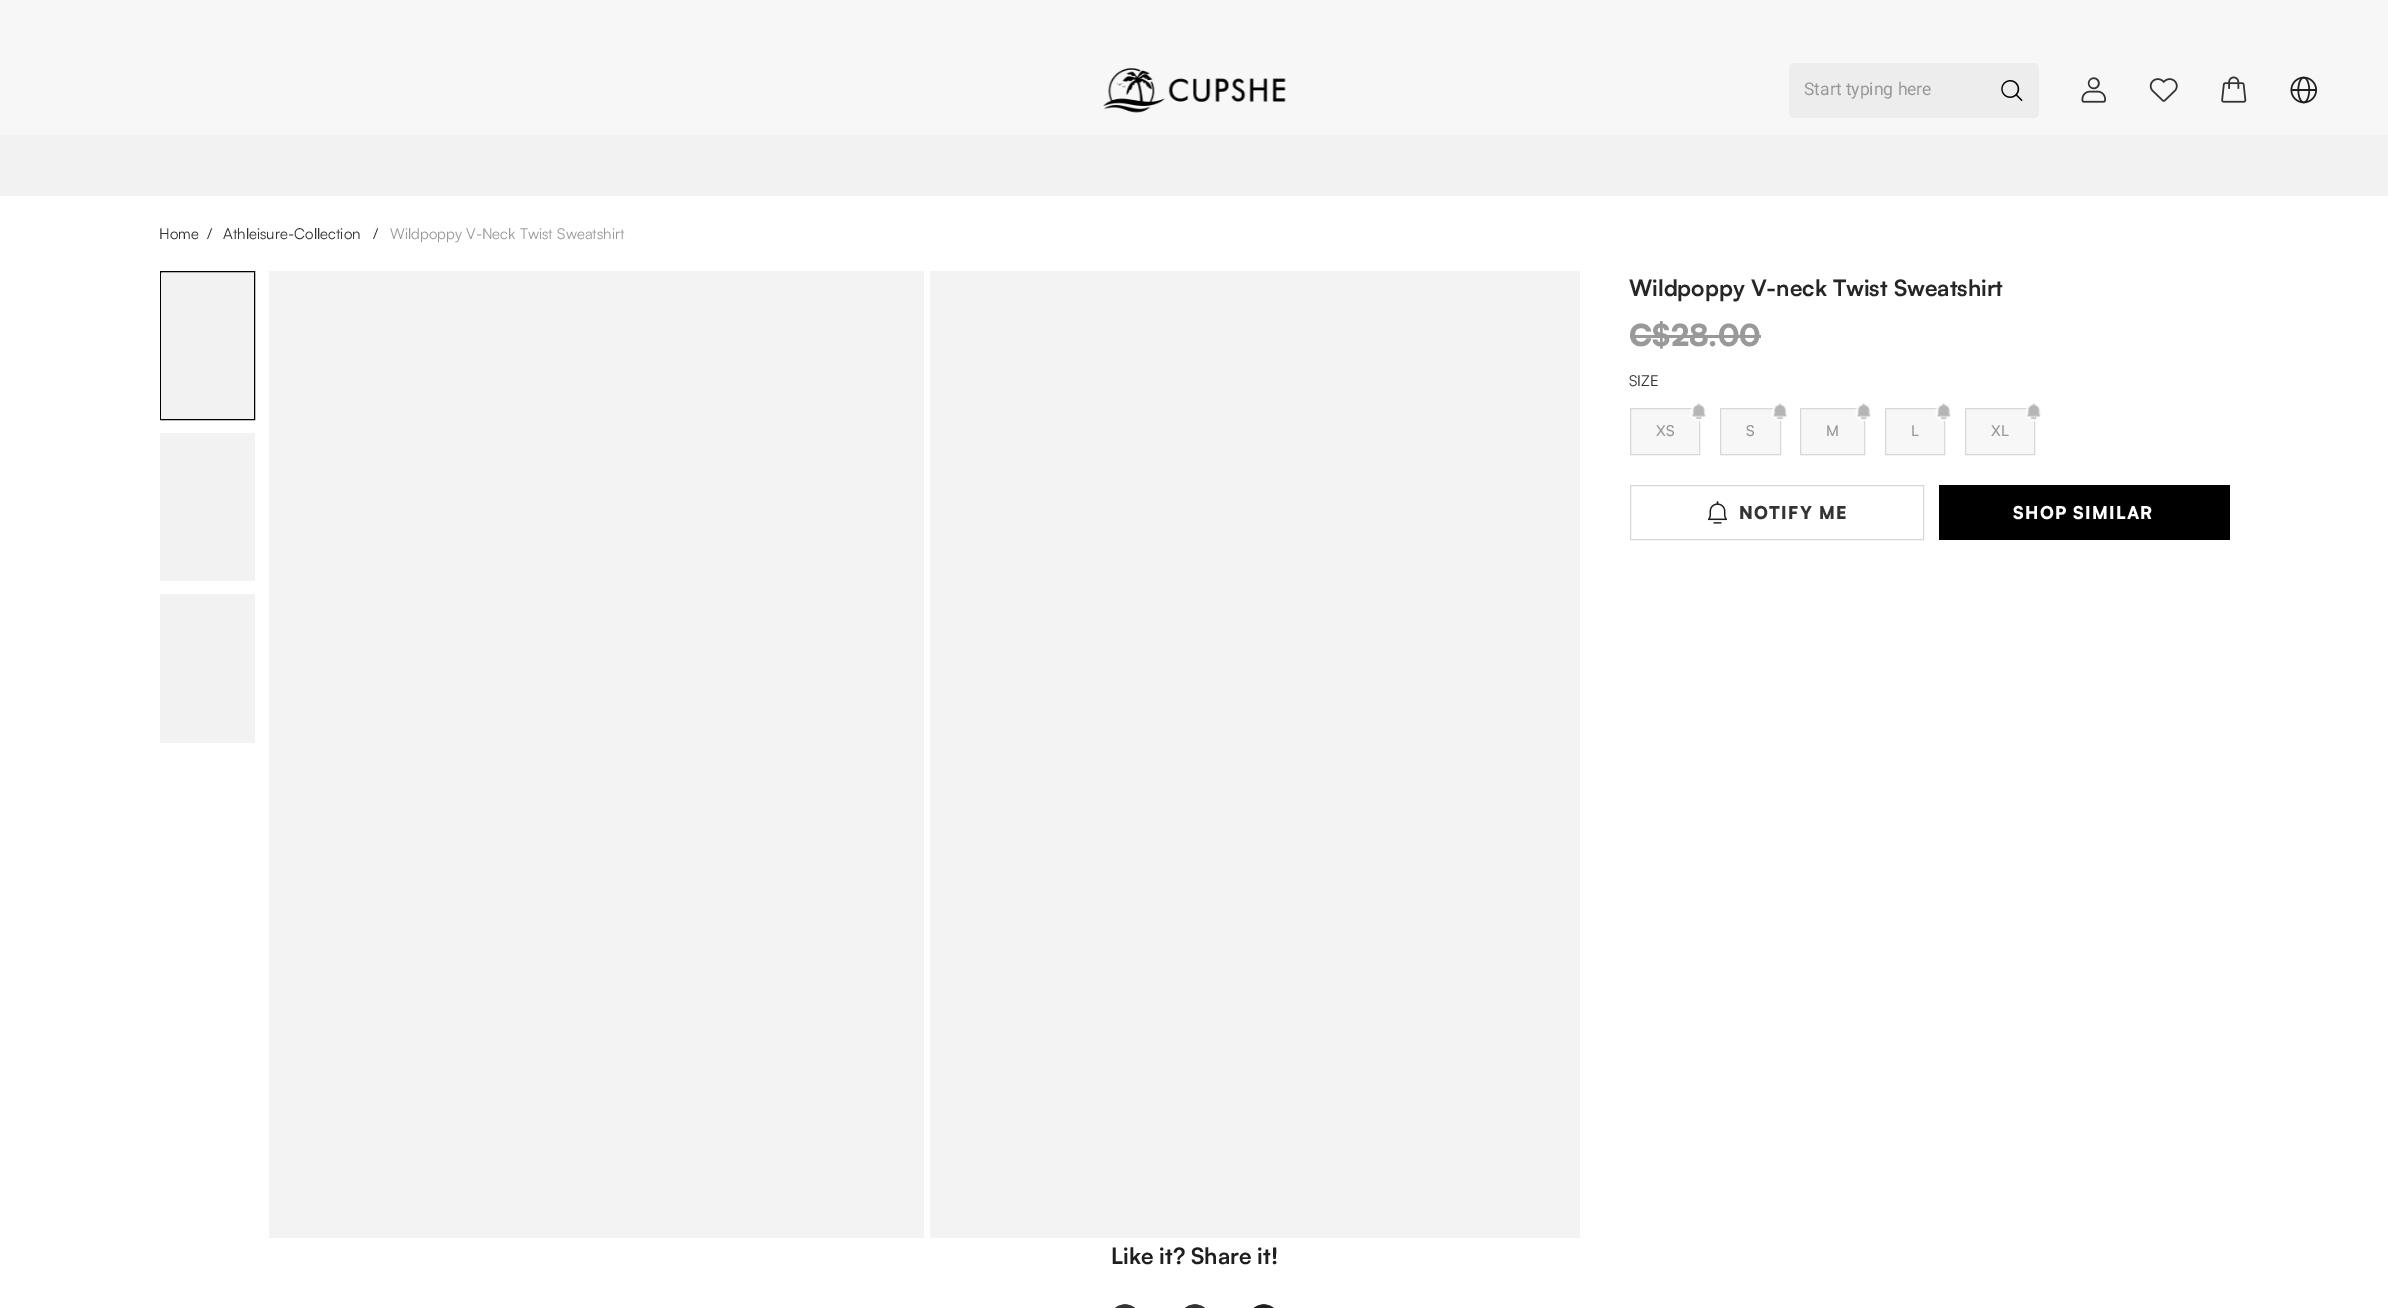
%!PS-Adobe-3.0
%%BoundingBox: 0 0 2388 1308
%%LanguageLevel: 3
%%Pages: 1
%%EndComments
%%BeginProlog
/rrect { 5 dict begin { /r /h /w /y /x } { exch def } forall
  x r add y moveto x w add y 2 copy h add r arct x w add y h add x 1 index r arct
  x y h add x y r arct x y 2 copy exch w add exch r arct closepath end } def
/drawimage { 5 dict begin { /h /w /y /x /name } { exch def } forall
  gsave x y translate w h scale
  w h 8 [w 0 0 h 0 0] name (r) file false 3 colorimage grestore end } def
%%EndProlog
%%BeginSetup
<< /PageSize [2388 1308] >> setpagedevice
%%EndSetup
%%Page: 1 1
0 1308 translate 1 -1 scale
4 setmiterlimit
1 setgray
0 0 2388 1308 rectfill
0.969 setgray
0 0 2388 135 rectfill
0.949 setgray
0 195 2388 1 rectfill
(images/1.raw) 1103 68 183 45 drawimage
0.929 setgray
1789 63 250 55 5 rrect fill
(images/2.raw) 2001 80 22 21 drawimage
(images/3.raw) 2081 77 25 26 drawimage
(images/4.raw) 2149 78 29 24 drawimage
(images/5.raw) 2221 76 26 27 drawimage
(images/6.raw) 2290 76 27 28 drawimage
gsave newpath 0 135 moveto 2388 135 lineto 2388 195 lineto 0 195 lineto closepath clip newpath
<< /ShadingType 2 /ColorSpace /DeviceRGB /Coords [0 165 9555 165] /Extend [true true] /Function << /FunctionType 3 /Domain [0 1] /Functions [<< /FunctionType 2 /Domain [0 1] /C0 [0.949 0.949 0.949] /C1 [0.949 0.949 0.949] /N 1 >> << /FunctionType 2 /Domain [0 1] /C0 [0.949 0.949 0.949] /C1 [0.882 0.882 0.882] /N 1 >> << /FunctionType 2 /Domain [0 1] /C0 [0.882 0.882 0.882] /C1 [0.949 0.949 0.949] /N 1 >> << /FunctionType 2 /Domain [0 1] /C0 [0.949 0.949 0.949] /C1 [0.949 0.949 0.949] /N 1 >>] /Bounds [0.25 0.37 0.63] /Encode [0 1 0 1 0 1 0 1] >> >> shfill grestore
0.949 setgray
161 272 93 1 rectfill
0 setgray
160.5 271.5 94 148 rectstroke
gsave newpath 161 273 moveto 254 273 lineto 254 419 lineto 161 419 lineto closepath clip newpath
<< /ShadingType 2 /ColorSpace /DeviceRGB /Coords [161 346 531 346] /Extend [true true] /Function << /FunctionType 3 /Domain [0 1] /Functions [<< /FunctionType 2 /Domain [0 1] /C0 [0.949 0.949 0.949] /C1 [0.949 0.949 0.949] /N 1 >> << /FunctionType 2 /Domain [0 1] /C0 [0.949 0.949 0.949] /C1 [0.882 0.882 0.882] /N 1 >> << /FunctionType 2 /Domain [0 1] /C0 [0.882 0.882 0.882] /C1 [0.949 0.949 0.949] /N 1 >> << /FunctionType 2 /Domain [0 1] /C0 [0.949 0.949 0.949] /C1 [0.949 0.949 0.949] /N 1 >>] /Bounds [0.25 0.37 0.63] /Encode [0 1 0 1 0 1 0 1] >> >> shfill grestore
gsave newpath 160 433 moveto 255 433 lineto 255 581 lineto 160 581 lineto closepath clip newpath
<< /ShadingType 2 /ColorSpace /DeviceRGB /Coords [160 507 540 507] /Extend [true true] /Function << /FunctionType 3 /Domain [0 1] /Functions [<< /FunctionType 2 /Domain [0 1] /C0 [0.949 0.949 0.949] /C1 [0.949 0.949 0.949] /N 1 >> << /FunctionType 2 /Domain [0 1] /C0 [0.949 0.949 0.949] /C1 [0.882 0.882 0.882] /N 1 >> << /FunctionType 2 /Domain [0 1] /C0 [0.882 0.882 0.882] /C1 [0.949 0.949 0.949] /N 1 >> << /FunctionType 2 /Domain [0 1] /C0 [0.949 0.949 0.949] /C1 [0.949 0.949 0.949] /N 1 >>] /Bounds [0.25 0.37 0.63] /Encode [0 1 0 1 0 1 0 1] >> >> shfill grestore
gsave newpath 160 594 moveto 255 594 lineto 255 743 lineto 160 743 lineto closepath clip newpath
<< /ShadingType 2 /ColorSpace /DeviceRGB /Coords [160 668 540 668] /Extend [true true] /Function << /FunctionType 3 /Domain [0 1] /Functions [<< /FunctionType 2 /Domain [0 1] /C0 [0.949 0.949 0.949] /C1 [0.949 0.949 0.949] /N 1 >> << /FunctionType 2 /Domain [0 1] /C0 [0.949 0.949 0.949] /C1 [0.882 0.882 0.882] /N 1 >> << /FunctionType 2 /Domain [0 1] /C0 [0.882 0.882 0.882] /C1 [0.949 0.949 0.949] /N 1 >> << /FunctionType 2 /Domain [0 1] /C0 [0.949 0.949 0.949] /C1 [0.949 0.949 0.949] /N 1 >>] /Bounds [0.25 0.37 0.63] /Encode [0 1 0 1 0 1 0 1] >> >> shfill grestore
gsave newpath 269 271 moveto 924 271 lineto 924 1238 lineto 269 1238 lineto closepath clip newpath
<< /ShadingType 2 /ColorSpace /DeviceRGB /Coords [269 754 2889 754] /Extend [true true] /Function << /FunctionType 3 /Domain [0 1] /Functions [<< /FunctionType 2 /Domain [0 1] /C0 [0.953 0.953 0.953] /C1 [0.953 0.953 0.953] /N 1 >> << /FunctionType 2 /Domain [0 1] /C0 [0.953 0.953 0.953] /C1 [0.882 0.882 0.882] /N 1 >> << /FunctionType 2 /Domain [0 1] /C0 [0.882 0.882 0.882] /C1 [0.953 0.953 0.953] /N 1 >> << /FunctionType 2 /Domain [0 1] /C0 [0.953 0.953 0.953] /C1 [0.953 0.953 0.953] /N 1 >>] /Bounds [0.25 0.37 0.63] /Encode [0 1 0 1 0 1 0 1] >> >> shfill grestore
gsave newpath 930 271 moveto 1580 271 lineto 1580 1238 lineto 930 1238 lineto closepath clip newpath
<< /ShadingType 2 /ColorSpace /DeviceRGB /Coords [930 754 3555 754] /Extend [true true] /Function << /FunctionType 3 /Domain [0 1] /Functions [<< /FunctionType 2 /Domain [0 1] /C0 [0.953 0.953 0.953] /C1 [0.953 0.953 0.953] /N 1 >> << /FunctionType 2 /Domain [0 1] /C0 [0.953 0.953 0.953] /C1 [0.882 0.882 0.882] /N 1 >> << /FunctionType 2 /Domain [0 1] /C0 [0.882 0.882 0.882] /C1 [0.953 0.953 0.953] /N 1 >> << /FunctionType 2 /Domain [0 1] /C0 [0.953 0.953 0.953] /C1 [0.953 0.953 0.953] /N 1 >>] /Bounds [0.25 0.37 0.63] /Encode [0 1 0 1 0 1 0 1] >> >> shfill grestore
0.6 setgray
1630 335 131 3 rectfill
0.969 setgray
newpath 1630.5 408.5 moveto 1699.5 408.5 lineto 1699.5 454.5 lineto 1630.5 454.5 lineto closepath gsave fill grestore
0.847 setgray
stroke
(images/7.raw) 1690 403 16 19 drawimage
0.969 setgray
newpath 1720.5 408.5 moveto 1780.5 408.5 lineto 1780.5 454.5 lineto 1720.5 454.5 lineto closepath gsave fill grestore
0.847 setgray
stroke
(images/8.raw) 1772 403 15 19 drawimage
0.969 setgray
newpath 1800.5 408.5 moveto 1864.5 408.5 lineto 1864.5 454.5 lineto 1800.5 454.5 lineto closepath gsave fill grestore
0.847 setgray
stroke
(images/9.raw) 1855 403 16 19 drawimage
0.969 setgray
newpath 1885.5 408.5 moveto 1944.5 408.5 lineto 1944.5 454.5 lineto 1885.5 454.5 lineto closepath gsave fill grestore
0.847 setgray
stroke
(images/9.raw) 1935 403 16 19 drawimage
0.969 setgray
newpath 1965.5 408.5 moveto 2034.5 408.5 lineto 2034.5 454.5 lineto 1965.5 454.5 lineto closepath gsave fill grestore
0.847 setgray
stroke
(images/9.raw) 2025 403 16 19 drawimage
1630.5 485.5 293 54 rectstroke
(images/10.raw) 1708 501 19 23 drawimage
0 setgray
1939 485 291 55 rectfill
(images/11.raw) 1115 1304 20 4 drawimage
(images/12.raw) 1185 1304 20 4 drawimage
(images/13.raw) 1253 1304 21 4 drawimage
/Roboto-Regular [17.5 0 0 -17.5 0 0] selectfont
0.6 setgray
1804 95 moveto (Start typing here) show
/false-Regular [15 0 0 -15 0 0] selectfont
0.2 setgray
159 239 moveto (Home) show
0.149 setgray
207 239 moveto (/) show
0.2 setgray
223 239 moveto (Athleisure-Collection) show
0.149 setgray
373 239 moveto (/) show
0.6 setgray
390 239 moveto (Wildpoppy V-Neck Twist Sweatshirt) show
/false-Bold [22.5 0 0 -22.5 0 0] selectfont
0.149 setgray
1629 296 moveto (Wildpoppy V-neck Twist Sweatshirt) show
/Satoshi-Black [30 0 0 -30 0 0] selectfont
0.6 setgray
1629 346 moveto (C$28.00) show
/false-Regular [15 0 0 -15 0 0] selectfont
0.2 setgray
1629 386 moveto (SIZE) show
/Satoshi-Medium [15 0 0 -15 0 0] selectfont
0.6 setgray
1656 436 moveto (XS) show
1746 436 moveto (S) show
1826 436 moveto (M) show
1911 436 moveto (L) show
1991 436 moveto (XL) show
/Satoshi-Black [17.5 0 0 -17.5 0 0] selectfont
0.2 setgray
1739 519 moveto 1.25 0 (NOTIFY ME) ashow
1 setgray
2013 519 moveto 1.25 0 (SHOP SIMILAR) ashow
/false-Bold [22.5 0 0 -22.5 0 0] selectfont
0.122 setgray
1111 1264 moveto (Like it? Share it!) show
showpage
%%EOF
